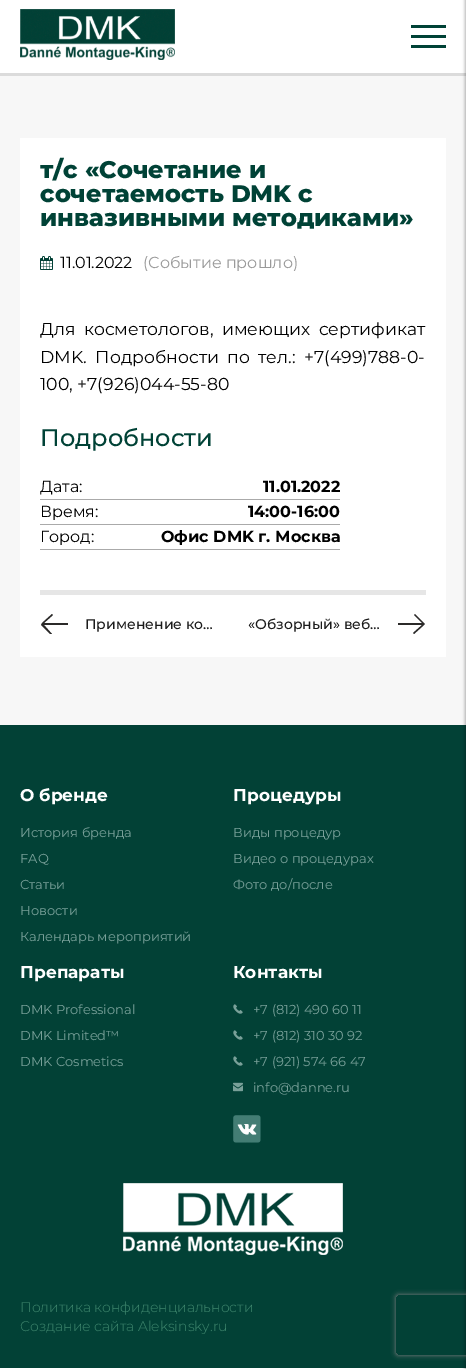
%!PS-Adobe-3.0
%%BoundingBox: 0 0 466 1369
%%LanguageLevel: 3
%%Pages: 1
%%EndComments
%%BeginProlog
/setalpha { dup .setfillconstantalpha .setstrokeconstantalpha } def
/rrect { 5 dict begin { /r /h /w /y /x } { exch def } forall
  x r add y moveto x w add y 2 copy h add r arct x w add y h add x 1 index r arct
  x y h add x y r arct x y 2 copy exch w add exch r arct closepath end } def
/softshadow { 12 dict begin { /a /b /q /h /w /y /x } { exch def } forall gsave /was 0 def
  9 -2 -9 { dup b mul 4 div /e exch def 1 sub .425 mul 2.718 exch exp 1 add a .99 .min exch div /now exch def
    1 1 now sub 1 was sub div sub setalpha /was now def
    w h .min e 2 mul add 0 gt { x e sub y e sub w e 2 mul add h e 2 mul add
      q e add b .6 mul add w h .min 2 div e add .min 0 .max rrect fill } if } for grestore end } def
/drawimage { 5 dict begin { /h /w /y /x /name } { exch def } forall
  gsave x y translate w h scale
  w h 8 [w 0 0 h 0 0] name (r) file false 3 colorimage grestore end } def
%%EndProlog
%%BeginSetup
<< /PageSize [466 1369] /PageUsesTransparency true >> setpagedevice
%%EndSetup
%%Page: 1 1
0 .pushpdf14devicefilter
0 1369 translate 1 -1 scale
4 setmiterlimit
1 setgray
0 0 466 1369 rectfill
0.859 setgray
0 73 466 3 rectfill
(images/1.raw) 20 9 155 51 drawimage
0 0.259 0.212 setrgbcolor
411 25 35 3 rectfill
411 35 35 3 rectfill
411 45 35 3 rectfill
0.969 setgray
0 76 466 649 rectfill
0.008 0.255 0.212 setrgbcolor
0 725 466 643 rectfill
0 setgray
465 -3 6 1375 0 1.5 0.3 softshadow
1 setgray
20 138 426 519 rectfill
(images/2.raw) 40 256 13 14 drawimage
0.667 setgray
40 499 300 1 rectfill
40 524 300 1 rectfill
40 549 300 1 rectfill
0.902 setgray
40 590 386 5 rectfill
gsave
40 614 28 20 rectclip
0.169 0.165 0.161 setrgbcolor
newpath 95 623 moveto 95 625 lineto 44 625 lineto 52 634 lineto 51 635 lineto 41 625 lineto 42 623 lineto 52 614 lineto 53 615 lineto 44 623 lineto closepath fill
grestore
gsave
398 614 28 20 rectclip
0.169 0.165 0.161 setrgbcolor
newpath 371 625 moveto 371 623 lineto 422 623 lineto 414 615 lineto 415 614 lineto 425 624 lineto 424 625 lineto 414 634 lineto 413 633 lineto 422 625 lineto closepath fill
grestore
(images/3.raw) 233 1004 10 10 drawimage
(images/3.raw) 233 1030 10 10 drawimage
(images/3.raw) 233 1056 10 10 drawimage
(images/4.raw) 233 1082 10 10 drawimage
(images/5.raw) 233 1115 28 28 drawimage
(images/6.raw) 123 1183 220 72 drawimage
gsave
newpath 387 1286 moveto 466 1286 lineto 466 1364 lineto 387 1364 lineto closepath 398 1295 moveto 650 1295 lineto 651 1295 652 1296 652 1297 curveto 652 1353 lineto 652 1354 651 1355 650 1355 curveto 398 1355 lineto 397 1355 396 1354 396 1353 curveto 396 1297 lineto 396 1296 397 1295 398 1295 curveto closepath eoclip newpath
0.502 setgray
396 1295 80 60 2 2.5 1 softshadow
grestore
/Montserrat-ExtraBold [24 0 0 -24 0 0] selectfont
0 0.259 0.212 setrgbcolor
40 178 moveto (т/с «Сочетание и) show
40 202 moveto (сочетаемость DMK с) show
40 226 moveto (инвазивными методиками») show
/Montserrat-Regular [16 0 0 -16 0 0] selectfont
0 setgray
60 268 moveto (11.01.2022) show
0.604 setgray
143 268 moveto (\(Событие прошло\)) show
/Montserrat-Regular [17.3 0 0 -17.3 0 0] selectfont
0 setgray
40 335 moveto 4 0 32 (Для косметологов, имеющих сертификат) widthshow
40 363 moveto 4 0 32 (DMK. Подробности по тел.: +7\(499\)788-0-) widthshow
40 390 moveto (100, +7\(926\)044-55-80) show
/Montserrat-Medium [24 0 0 -24 0 0] selectfont
0 0.259 0.212 setrgbcolor
40 446 moveto (Подробности) show
/Montserrat-Regular [16 0 0 -16 0 0] selectfont
0 setgray
40 492 moveto (Дата:) show
/Montserrat-Bold [16 0 0 -16 0 0] selectfont
263 492 moveto (11.01.2022) show
/Montserrat-Regular [16 0 0 -16 0 0] selectfont
40 517 moveto (Время:) show
/Montserrat-Bold [16 0 0 -16 0 0] selectfont
248 517 moveto (14:00-16:00) show
/Montserrat-Regular [16 0 0 -16 0 0] selectfont
40 542 moveto (Город:) show
/Montserrat-Bold [16 0 0 -16 0 0] selectfont
161 542 moveto (Офис DMK г. Москва) show
/Montserrat-Medium [14 0 0 -14 0 0] selectfont
0.106 setgray
85 629 moveto (Применение ко…) show
248 629 moveto («Обзорный» веб…) show
/Montserrat-Bold [17 0 0 -17 0 0] selectfont
1 setgray
20 801 moveto (О бренде) show
/Montserrat-Regular [13 0 0 -13 0 0] selectfont
0.475 0.627 0.6 setrgbcolor
20 837 moveto (История бренда) show
20 863 moveto (FAQ) show
20 889 moveto (Статьи) show
20 915 moveto (Новости) show
20 941 moveto (Календарь мероприятий) show
/Montserrat-Bold [17 0 0 -17 0 0] selectfont
1 setgray
233 801 moveto (Процедуры) show
/Montserrat-Regular [13 0 0 -13 0 0] selectfont
0.475 0.627 0.6 setrgbcolor
233 837 moveto (Виды процедур) show
233 863 moveto (Видео о процедурах) show
233 889 moveto (Фото до/после) show
/Montserrat-Bold [17 0 0 -17 0 0] selectfont
1 setgray
20 978 moveto (Препараты) show
/Montserrat-Regular [13 0 0 -13 0 0] selectfont
0.475 0.627 0.6 setrgbcolor
20 1014 moveto (DMK Professional) show
20 1040 moveto (DMK Limited™) show
20 1066 moveto (DMK Cosmetics) show
/Montserrat-Bold [17 0 0 -17 0 0] selectfont
1 setgray
233 978 moveto (Контакты) show
/Montserrat-Regular [13 0 0 -13 0 0] selectfont
0.475 0.627 0.6 setrgbcolor
253 1014 moveto (+7 \(812\) 490 60 11) show
253 1040 moveto (+7 \(812\) 310 30 92) show
253 1066 moveto (+7 \(921\) 574 66 47) show
253 1092 moveto (info@danne.ru) show
/Montserrat-Light [14 0 0 -14 0 0] selectfont
0.243 0.525 0.427 setrgbcolor
20 1312 moveto (Политика конфиденциальности) show
20 1331 moveto (Создание сайта Aleksinsky.ru) show
.poppdf14devicefilter showpage
%%EOF
